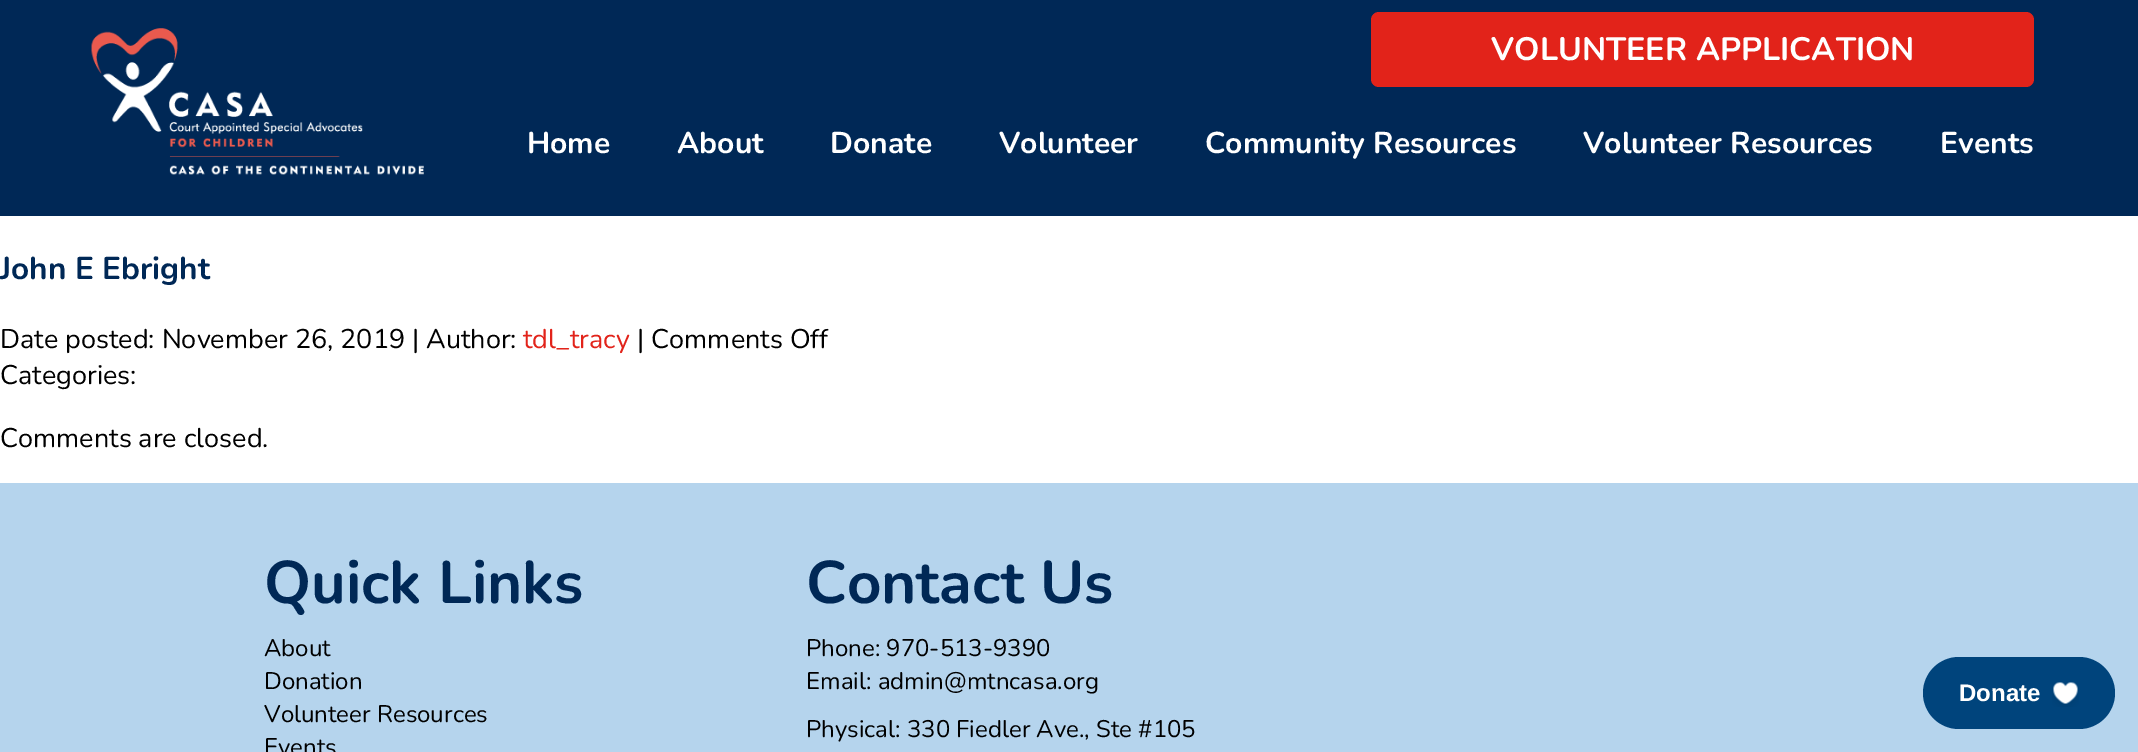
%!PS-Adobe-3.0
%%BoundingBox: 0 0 2138 752
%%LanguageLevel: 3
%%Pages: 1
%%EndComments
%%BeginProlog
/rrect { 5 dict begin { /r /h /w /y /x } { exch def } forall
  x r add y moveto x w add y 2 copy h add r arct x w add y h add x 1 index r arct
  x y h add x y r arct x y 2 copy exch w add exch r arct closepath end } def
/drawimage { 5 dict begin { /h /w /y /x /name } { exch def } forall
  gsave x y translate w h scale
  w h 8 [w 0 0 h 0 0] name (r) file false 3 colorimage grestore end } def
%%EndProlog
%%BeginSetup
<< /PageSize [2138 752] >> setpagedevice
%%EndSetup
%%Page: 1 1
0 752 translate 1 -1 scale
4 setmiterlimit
1 setgray
0 0 2138 752 rectfill
0 0.157 0.337 setrgbcolor
0 0 2138 216 rectfill
(images/1.raw) 91 28 333 147 drawimage
0.886 0.137 0.102 setrgbcolor
1371 12 663 75 8 rrect fill
0.71 0.831 0.929 setrgbcolor
0 483 2138 269 rectfill
0 0.267 0.486 setrgbcolor
1923 657 192 72 36 rrect fill
(images/2.raw) 2052 682 27 25 drawimage
/Nunito-Bold [32.4 0 0 -32.4 0 0] selectfont
1 setgray
1491 60 moveto (VOLUNTEER APPLICATION) show
/Nunito-Bold [30 0 0 -30 0 0] selectfont
527 153 moveto (Home) show
677 153 moveto (About) show
830 153 moveto (Donate) show
999 153 moveto (Volunteer) show
1205 153 moveto (Community Resources) show
1583 153 moveto (Volunteer Resources) show
1940 153 moveto (Events) show
/Nunito-Bold [31.5 0 0 -31.5 0 0] selectfont
0 0.157 0.337 setrgbcolor
0 279 moveto (John E Ebright) show
/Nunito-Regular [27 0 0 -27 0 0] selectfont
0 setgray
0 348 moveto (Date posted: November 26, 2019 | Author:) show
0.886 0.137 0.102 setrgbcolor
523 348 moveto (tdl_tracy) show
0 setgray
637 348 moveto (| Comments Off) show
0 384 moveto (Categories:) show
0 447 moveto (Comments are closed.) show
/Nunito-Bold [60 0 0 -60 0 0] selectfont
0 0.157 0.337 setrgbcolor
264 603 moveto (Quick Links) show
/Nunito-Regular [24 0 0 -24 0 0] selectfont
0 setgray
264 656 moveto (About) show
264 689 moveto (Donation) show
264 722 moveto (Volunteer Resources) show
264 755 moveto (Events) show
/Nunito-Bold [60 0 0 -60 0 0] selectfont
0 0.157 0.337 setrgbcolor
806 603 moveto (Contact Us) show
/Nunito-Regular [24 0 0 -24 0 0] selectfont
0 setgray
806 656 moveto (Phone: 970-513-9390) show
806 689 moveto (Email: admin@mtncasa.org) show
806 737 moveto (Physical: 330 Fiedler Ave., Ste #105) show
/LiberationSans-Bold [24 0 0 -24 0 0] selectfont
1 setgray
1959 701 moveto (Donate) show
showpage
%%EOF
